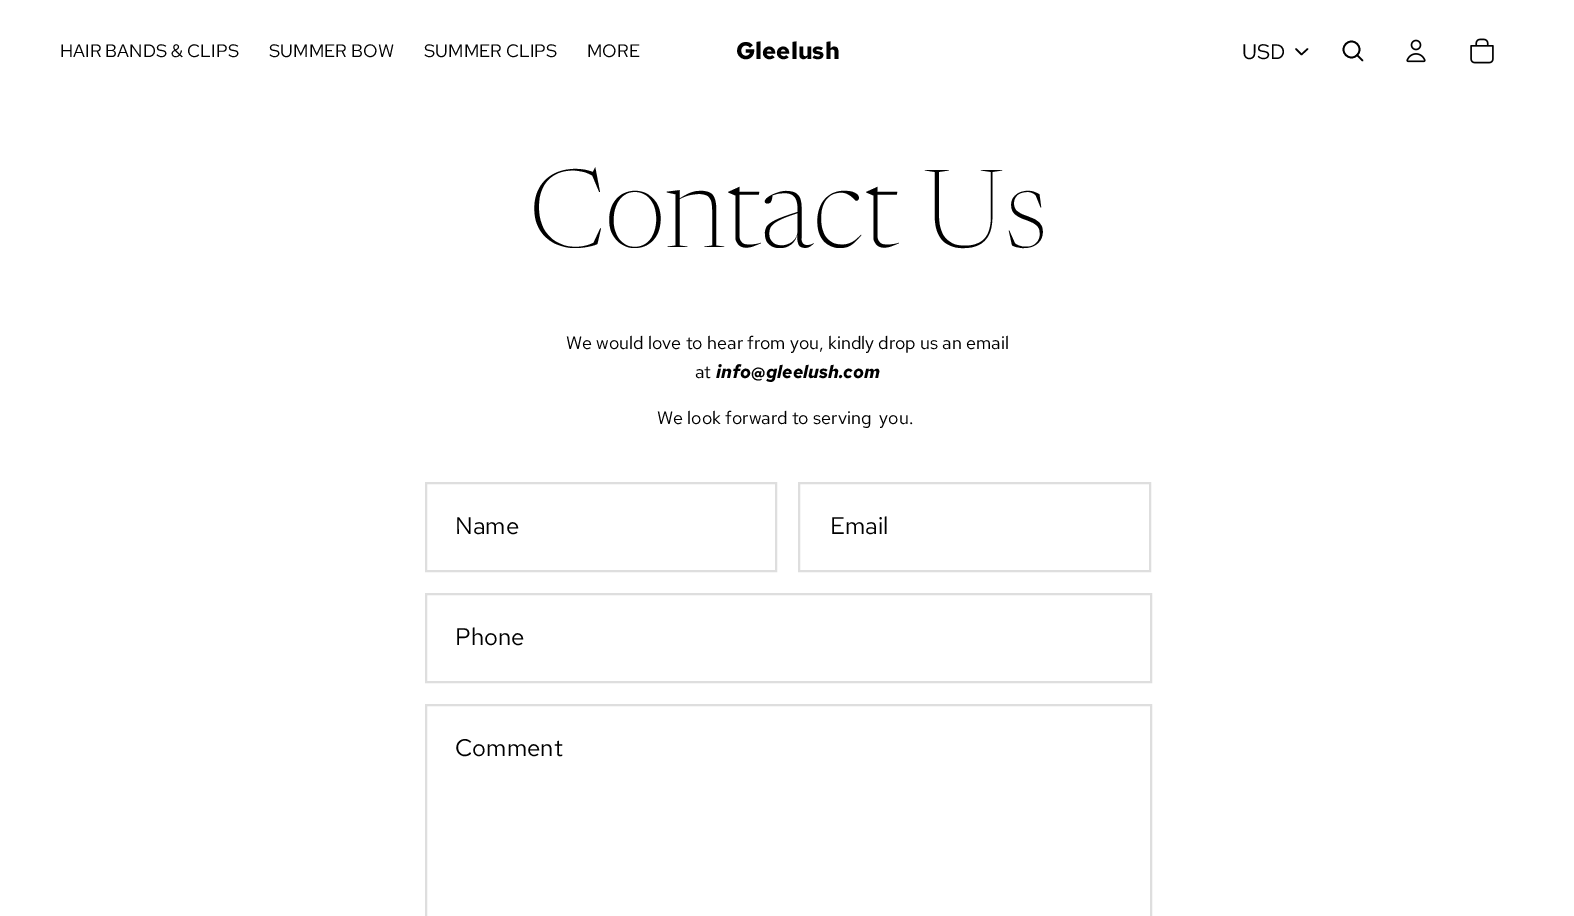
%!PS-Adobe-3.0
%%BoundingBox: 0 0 1574 916
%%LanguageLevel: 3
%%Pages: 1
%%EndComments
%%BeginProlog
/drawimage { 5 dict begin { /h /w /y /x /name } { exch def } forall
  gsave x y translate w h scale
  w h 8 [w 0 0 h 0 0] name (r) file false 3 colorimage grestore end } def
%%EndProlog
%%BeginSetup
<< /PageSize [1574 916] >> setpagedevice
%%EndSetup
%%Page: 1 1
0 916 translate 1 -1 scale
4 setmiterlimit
1 setgray
0 0 1574 916 rectfill
0 setgray
1.5 setlinewidth
1 setlinecap
1 setlinejoin
newpath 1307.5 49 moveto 1301.5 54.5 lineto 1296 49 lineto stroke
1.7 setlinewidth
0 setlinecap
0 setlinejoin
newpath 1351.5 49.5 8 0 360 arc closepath stroke
1 setlinecap
1 setlinejoin
newpath 1357 55 moveto 1362.5 60.5 lineto stroke
(images/1.raw) 1406 39 20 24 drawimage
(images/2.raw) 1470 38 24 26 drawimage
0.871 setgray
2 setlinewidth
0 setlinecap
0 setlinejoin
426 483 350 88 rectstroke
799 483 351 88 rectstroke
426 594 725 88 rectstroke
426 705 725 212 rectstroke
/RedHatText-Regular [18 0 0 -18 0 0] selectfont
0 setgray
60 57 moveto (HAIR BANDS & CLIPS) show
269 57 moveto (SUMMER BOW) show
424 57 moveto (SUMMER CLIPS) show
587 57 moveto (MORE) show
/RedHatText-Bold [24 0 0 -24 0 0] selectfont
736 59 moveto (Gleelush) show
/RedHatText-Regular [21 0 0 -21 0 0] selectfont
1242 59 moveto (USD) show
/Newsreader-ExtraLight [108 0 0 -108 0 0] selectfont
529 247 moveto (Contact Us) show
/RedHatText-Regular [18 0 0 -18 0 0] selectfont
566 349 moveto (We would love to hear from you, kindly drop us an email) show
695 378 moveto (at) show
/RedHatText-BoldItalic [18 0 0 -18 0 0] selectfont
716 378 moveto (info@gleelush.com) show
/RedHatText-Regular [18 0 0 -18 0 0] selectfont
657 424 moveto (We look forward to serving  you.) show
/RedHatText-Regular [24 0 0 -24 0 0] selectfont
455 534 moveto (Name) show
830 534 moveto (Email) show
455 645 moveto (Phone) show
455 756 moveto (Comment) show
showpage
%%EOF
